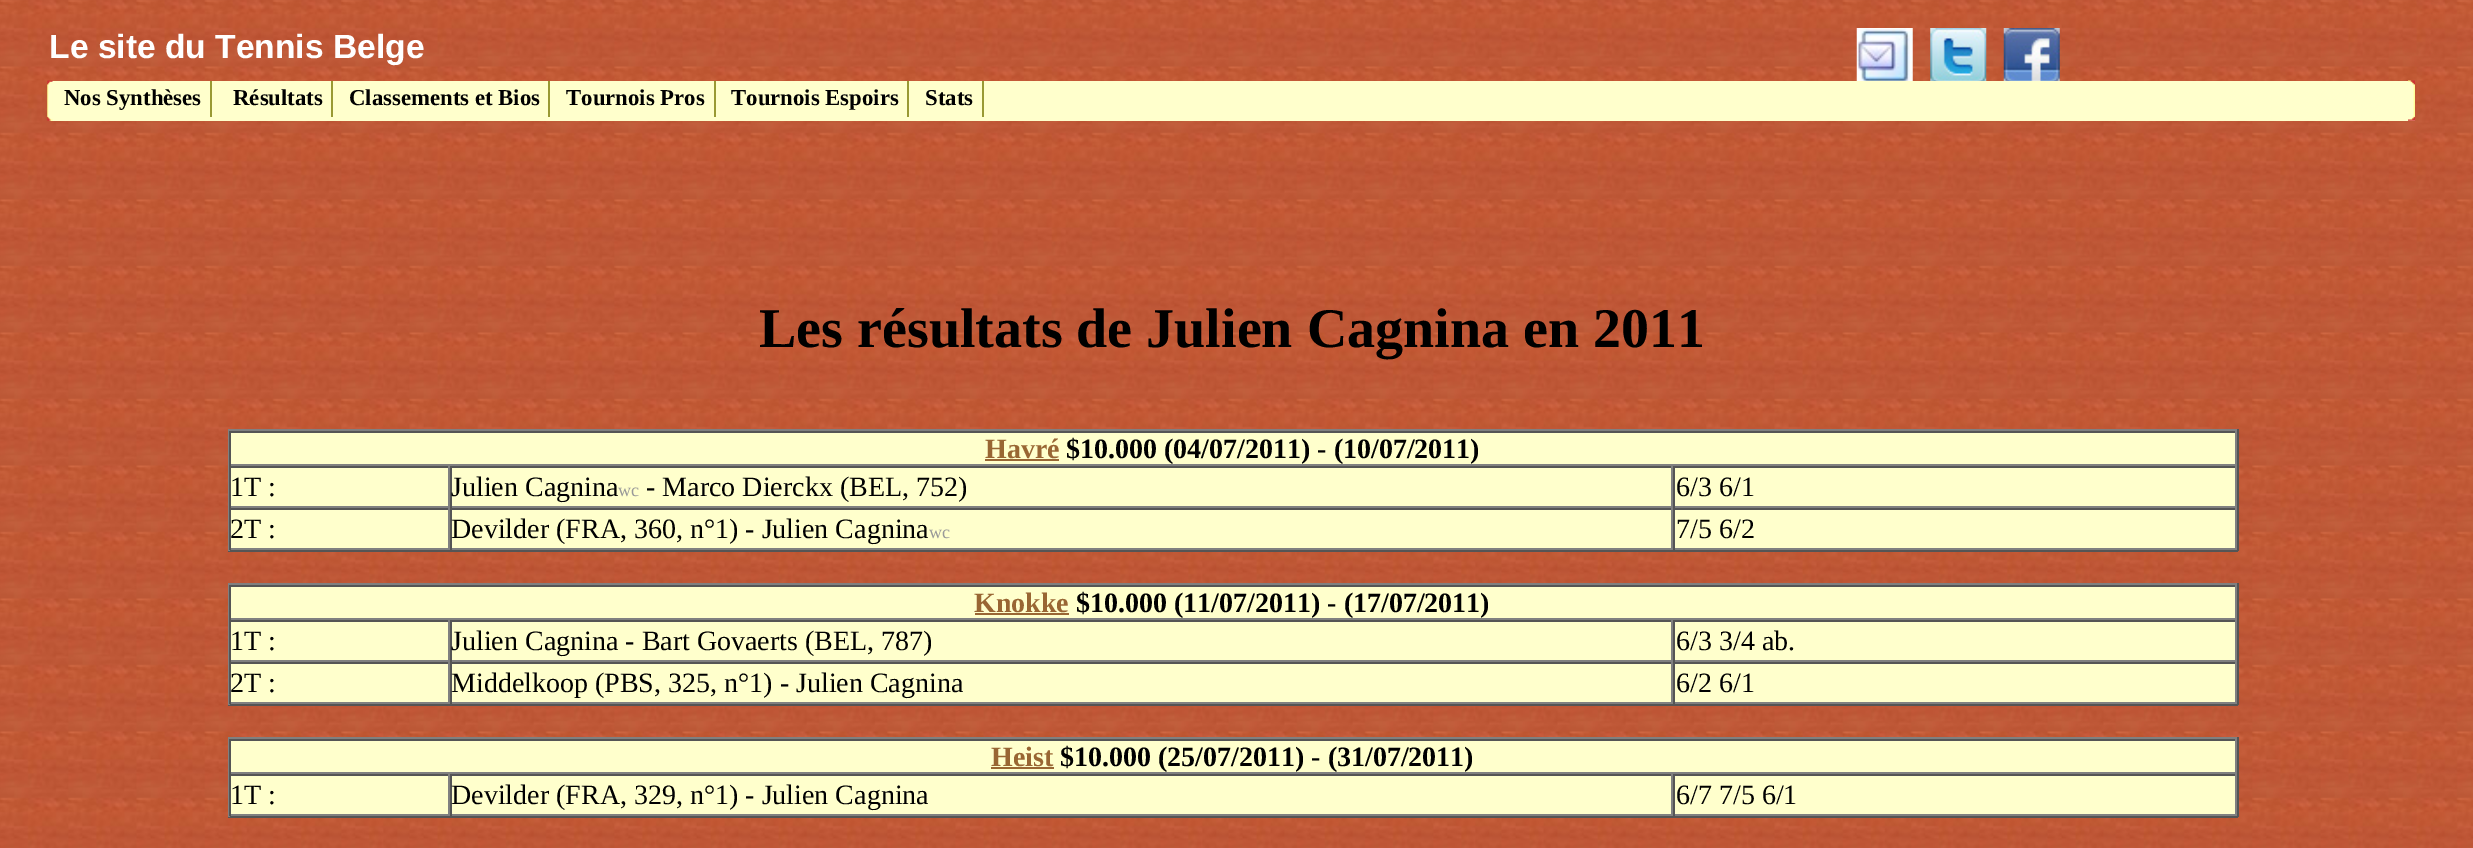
%!PS-Adobe-3.0
%%BoundingBox: 0 0 2473 848
%%LanguageLevel: 3
%%Pages: 1
%%EndComments
%%BeginProlog
/drawimage { 5 dict begin { /h /w /y /x /name } { exch def } forall
  gsave x y translate w h scale
  w h 8 [w 0 0 h 0 0] name (r) file false 3 colorimage grestore end } def
%%EndProlog
%%BeginSetup
<< /PageSize [2473 848] >> setpagedevice
%%EndSetup
%%Page: 1 1
0 848 translate 1 -1 scale
4 setmiterlimit
1 setgray
0 0 2473 848 rectfill
(images/1.raw) 0 0 2473 848 drawimage
(images/2.raw) 1856 28 57 53 drawimage
(images/3.raw) 1930 28 57 53 drawimage
(images/4.raw) 2003 28 57 53 drawimage
1 1 0.8 setrgbcolor
49 81 2366 40 rectfill
(images/5.raw) 47 80 6 41 drawimage
0.6 0.6 0.2 setrgbcolor
210 81 2 36 rectfill
331 81 2 36 rectfill
548 81 2 36 rectfill
714 81 2 36 rectfill
907 81 2 36 rectfill
982 81 2 36 rectfill
(images/6.raw) 2408 80 7 41 drawimage
1 1 0.8 setrgbcolor
231 433 2004 115 rectfill
0.502 setgray
228 429 2010 2 rectfill
0.333 setgray
2237 429 2 122 rectfill
228 550 2010 2 rectfill
0.502 setgray
228 429 2 122 rectfill
0.333 setgray
229 431 2008 2 rectfill
0.502 setgray
2235 431 2 35 rectfill
229 464 2008 2 rectfill
0.333 setgray
229 431 2 35 rectfill
0.6 0.4 0.2 setrgbcolor
985 459 74 2 rectfill
0.333 setgray
229 466 2008 2 rectfill
0.502 setgray
448 466 2 42 rectfill
229 506 221 2 rectfill
0.333 setgray
229 466 2 42 rectfill
0.502 setgray
1671 466 2 42 rectfill
450 506 1223 2 rectfill
0.333 setgray
450 466 2 42 rectfill
0.502 setgray
2235 466 2 42 rectfill
1673 506 564 2 rectfill
0.333 setgray
1673 466 2 42 rectfill
229 508 2008 2 rectfill
0.502 setgray
448 508 2 42 rectfill
229 548 221 2 rectfill
0.333 setgray
229 508 2 42 rectfill
0.502 setgray
1671 508 2 42 rectfill
450 548 1223 2 rectfill
0.333 setgray
450 508 2 42 rectfill
0.502 setgray
2235 508 2 42 rectfill
1673 548 564 2 rectfill
0.333 setgray
1673 508 2 42 rectfill
1 1 0.8 setrgbcolor
231 587 2004 115 rectfill
0.502 setgray
228 583 2010 2 rectfill
0.333 setgray
2237 583 2 122 rectfill
228 704 2010 2 rectfill
0.502 setgray
228 583 2 122 rectfill
0.333 setgray
229 585 2008 2 rectfill
0.502 setgray
2235 585 2 35 rectfill
229 618 2008 2 rectfill
0.333 setgray
229 585 2 35 rectfill
0.6 0.4 0.2 setrgbcolor
975 613 94 2 rectfill
0.333 setgray
229 620 2008 2 rectfill
0.502 setgray
448 620 2 42 rectfill
229 660 221 2 rectfill
0.333 setgray
229 620 2 42 rectfill
0.502 setgray
1671 620 2 42 rectfill
450 660 1223 2 rectfill
0.333 setgray
450 620 2 42 rectfill
0.502 setgray
2235 620 2 42 rectfill
1673 660 564 2 rectfill
0.333 setgray
1673 620 2 42 rectfill
229 662 2008 2 rectfill
0.502 setgray
448 662 2 42 rectfill
229 702 221 2 rectfill
0.333 setgray
229 662 2 42 rectfill
0.502 setgray
1671 662 2 42 rectfill
450 702 1223 2 rectfill
0.333 setgray
450 662 2 42 rectfill
0.502 setgray
2235 662 2 42 rectfill
1673 702 564 2 rectfill
0.333 setgray
1673 662 2 42 rectfill
1 1 0.8 setrgbcolor
231 741 2004 73 rectfill
0.502 setgray
228 737 2010 2 rectfill
0.333 setgray
2237 737 2 80 rectfill
228 816 2010 2 rectfill
0.502 setgray
228 737 2 80 rectfill
0.333 setgray
229 739 2008 2 rectfill
0.502 setgray
2235 739 2 35 rectfill
229 772 2008 2 rectfill
0.333 setgray
229 739 2 35 rectfill
0.6 0.4 0.2 setrgbcolor
991 767 63 2 rectfill
0.333 setgray
229 774 2008 2 rectfill
0.502 setgray
448 774 2 42 rectfill
229 814 221 2 rectfill
0.333 setgray
229 774 2 42 rectfill
0.502 setgray
1671 774 2 42 rectfill
450 814 1223 2 rectfill
0.333 setgray
450 774 2 42 rectfill
0.502 setgray
2235 774 2 42 rectfill
1673 814 564 2 rectfill
0.333 setgray
1673 774 2 42 rectfill
/LiberationSans-Bold [33.6 0 0 -33.6 0 0] selectfont
1 setgray
49 58 moveto (Le site du Tennis Belge) show
/LiberationSerif-Bold [22.75 0 0 -22.75 0 0] selectfont
0 setgray
64 105 moveto (Nos Synthèses) show
233 105 moveto (Résultats) show
349 105 moveto (Classements et Bios) show
566 105 moveto (Tournois Pros) show
731 105 moveto (Tournois Espoirs) show
925 105 moveto (Stats) show
/LiberationSerif-Bold [56 0 0 -56 0 0] selectfont
759 347 moveto (Les résultats de Julien Cagnina en 2011) show
/LiberationSerif-Bold [28 0 0 -28 0 0] selectfont
0.6 0.4 0.2 setrgbcolor
985 458 moveto (Havré) show
0 setgray
1066 458 moveto ($10.000 \(04/07/2011\) - \(10/07/2011\)) show
/LiberationSerif-Regular [28 0 0 -28 0 0] selectfont
230 496 moveto (1T :) show
451 496 moveto (Julien Cagnina) show
/LiberationSerif-Regular [18 0 0 -18 0 0] selectfont
0.6 setgray
618 496 moveto (wc) show
/LiberationSerif-Regular [28 0 0 -28 0 0] selectfont
0 setgray
646 496 moveto (- Marco Dierckx \(BEL, 752\)) show
1676 496 moveto (6/3 6/1) show
230 538 moveto (2T :) show
451 538 moveto (Devilder \(FRA, 360, n°1\) - Julien Cagnina) show
/LiberationSerif-Regular [18 0 0 -18 0 0] selectfont
0.6 setgray
929 538 moveto (wc) show
/LiberationSerif-Regular [28 0 0 -28 0 0] selectfont
0 setgray
1676 538 moveto (7/5 6/2) show
/LiberationSerif-Bold [28 0 0 -28 0 0] selectfont
0.6 0.4 0.2 setrgbcolor
974 612 moveto (Knokke) show
0 setgray
1076 612 moveto ($10.000 \(11/07/2011\) - \(17/07/2011\)) show
/LiberationSerif-Regular [28 0 0 -28 0 0] selectfont
230 650 moveto (1T :) show
451 650 moveto (Julien Cagnina - Bart Govaerts \(BEL, 787\)) show
1676 650 moveto (6/3 3/4 ab.) show
230 692 moveto (2T :) show
451 692 moveto (Middelkoop \(PBS, 325, n°1\) - Julien Cagnina) show
1676 692 moveto (6/2 6/1) show
/LiberationSerif-Bold [28 0 0 -28 0 0] selectfont
0.6 0.4 0.2 setrgbcolor
991 766 moveto (Heist) show
0 setgray
1060 766 moveto ($10.000 \(25/07/2011\) - \(31/07/2011\)) show
/LiberationSerif-Regular [28 0 0 -28 0 0] selectfont
230 804 moveto (1T :) show
451 804 moveto (Devilder \(FRA, 329, n°1\) - Julien Cagnina) show
1676 804 moveto (6/7 7/5 6/1) show
showpage
%%EOF
